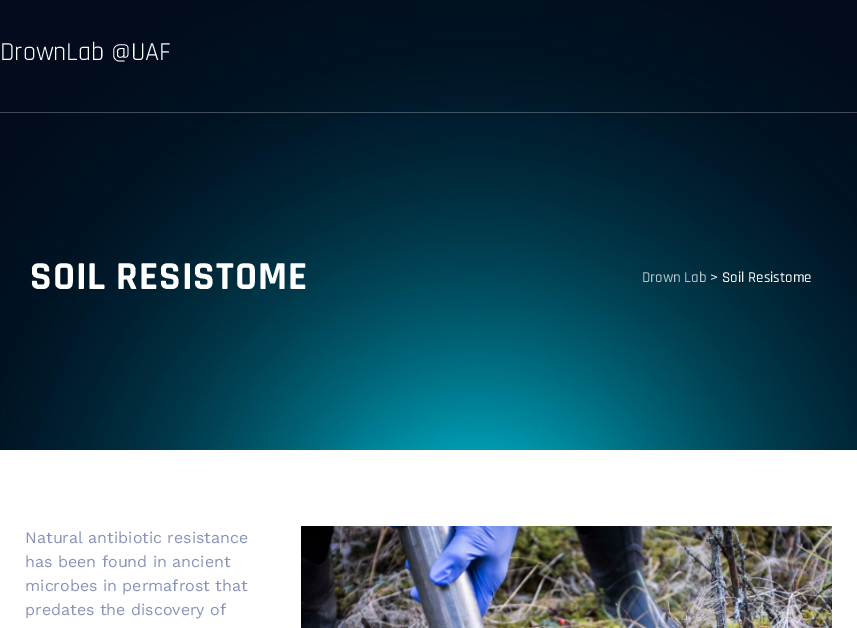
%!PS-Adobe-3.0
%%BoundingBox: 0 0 857 628
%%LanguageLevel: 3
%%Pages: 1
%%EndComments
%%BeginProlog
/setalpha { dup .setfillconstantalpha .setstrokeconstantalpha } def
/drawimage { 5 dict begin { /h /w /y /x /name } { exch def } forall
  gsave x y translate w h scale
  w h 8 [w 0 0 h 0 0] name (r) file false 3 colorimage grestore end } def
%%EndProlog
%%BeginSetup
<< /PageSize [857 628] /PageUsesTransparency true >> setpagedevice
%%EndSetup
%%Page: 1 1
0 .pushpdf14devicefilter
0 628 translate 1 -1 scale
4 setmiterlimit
1 setgray
0 0 857 628 rectfill
(images/1.raw) 0 0 857 450 drawimage
0.25 setalpha
0 112 857 1 rectfill
1 setalpha
(images/2.raw) 301 526 531 102 drawimage
/Rajdhani-Regular [26 0 0 -26 0 0] selectfont
0 60 moveto (DrownLab @UAF) show
/Rajdhani-Bold [40 0 0 -40 0 0] selectfont
30 289 moveto 1 0 (SOIL RESISTOME) ashow
/Rajdhani-Medium [15 0 0 -15 0 0] selectfont
0.722 0.776 0.796 setrgbcolor
642 282 moveto (Drown Lab) show
1 setgray
710 282 moveto (> Soil Resistome) show
/WorkSans-Regular [16 0 0 -16 0 0] selectfont
0.533 0.576 0.725 setrgbcolor
25 543 moveto (Natural antibiotic resistance) show
25 567 moveto (has been found in ancient) show
25 591 moveto (microbes in permafrost that) show
25 615 moveto (predates the discovery of) show
.poppdf14devicefilter showpage
%%EOF
